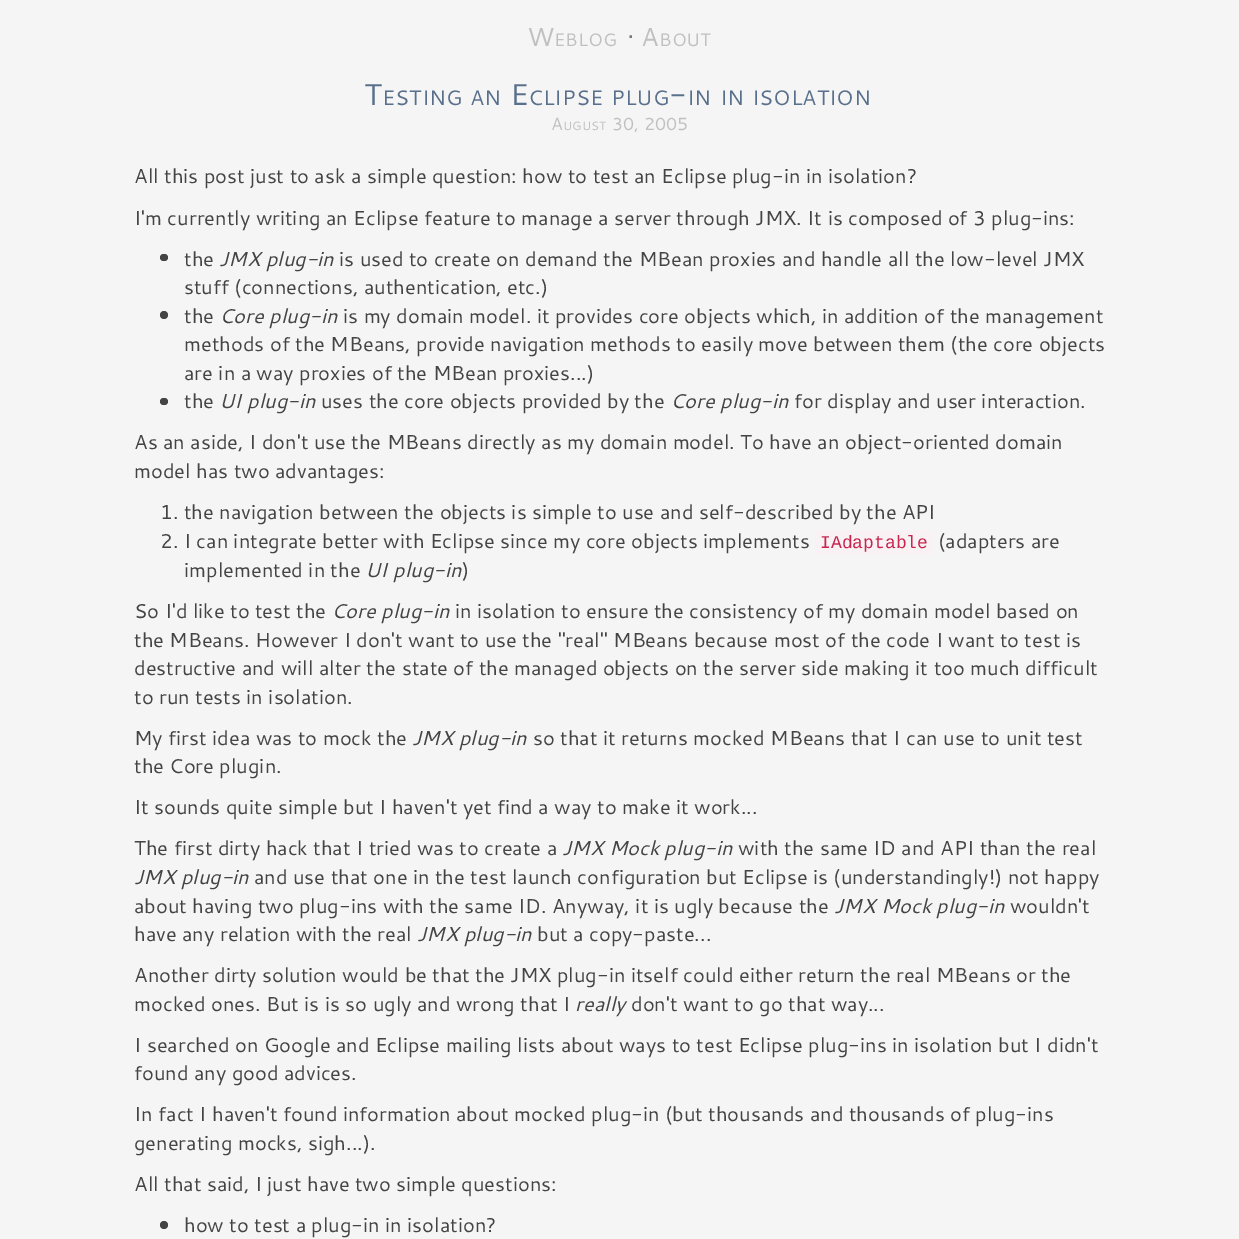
%!PS-Adobe-3.0
%%BoundingBox: 0 0 1239 1239
%%LanguageLevel: 3
%%Pages: 1
%%EndComments
%%BeginProlog
/rrect { 5 dict begin { /r /h /w /y /x } { exch def } forall
  x r add y moveto x w add y 2 copy h add r arct x w add y h add x 1 index r arct
  x y h add x y r arct x y 2 copy exch w add exch r arct closepath end } def
%%EndProlog
%%BeginSetup
<< /PageSize [1239 1239] >> setpagedevice
%%EndSetup
%%Page: 1 1
0 1239 translate 1 -1 scale
4 setmiterlimit
0.961 setgray
0 0 1239 1239 rectfill
0.267 setgray
160 254 8 7 3.5 rrect fill
newpath 164 315 4 0 360 arc closepath fill
160 398 8 7 3.5 rrect fill
0.976 0.949 0.957 setrgbcolor
815 530 118 25 5 rrect fill
0.267 setgray
newpath 164 1225 4 0 360 arc closepath fill
/Cantarell-Regular [26 0 0 -26 0 0] selectfont
0.753 setgray
527 46 moveto (W) show
/Cantarell-Regular [18 0 0 -18 0 0] selectfont
554 46 moveto (EBLOG) show
/Cantarell-Regular [26 0 0 -26 0 0] selectfont
0.467 setgray
627 46 moveto (·) show
0.753 setgray
641 46 moveto (A) show
/Cantarell-Regular [18 0 0 -18 0 0] selectfont
659 46 moveto (BOUT) show
/Cantarell-Regular [30 0 0 -30 0 0] selectfont
0.349 0.439 0.549 setrgbcolor
364 105 moveto (T) show
/Cantarell-Regular [21 0 0 -21 0 0] selectfont
382 105 moveto (ESTING) show
470 105 moveto (AN) show
/Cantarell-Regular [30 0 0 -30 0 0] selectfont
510 105 moveto (E) show
/Cantarell-Regular [21 0 0 -21 0 0] selectfont
528 105 moveto (CLIPSE) show
611 105 moveto (PLUG) show
/Cantarell-Regular [30 0 0 -30 0 0] selectfont
669 105 moveto (-) show
/Cantarell-Regular [21 0 0 -21 0 0] selectfont
687 105 moveto (IN) show
720 105 moveto (IN) show
752 105 moveto (ISOLATION) show
/Cantarell-Regular [17.5 0 0 -17.5 0 0] selectfont
0.753 setgray
551 130 moveto (A) show
/Cantarell-Regular [12 0 0 -12 0 0] selectfont
563 130 moveto (UGUST) show
/Cantarell-Regular [17.5 0 0 -17.5 0 0] selectfont
612 130 moveto (30, 2005) show
/Cantarell-Regular [20 0 0 -20 0 0] selectfont
0.267 setgray
134 183 moveto (All this post just to ask a simple question: how to test an Eclipse plug-in in isolation?) show
134 225 moveto (I'm currently writing an Eclipse feature to manage a server through JMX. It is composed of 3 plug-ins:) show
184 266 moveto (the) show
/Cantarell-Italic [20 0 0 -20 0 0] selectfont
219 266 moveto (JMX plug-in) show
/Cantarell-Regular [20 0 0 -20 0 0] selectfont
339 266 moveto (is used to create on demand the MBean proxies and handle all the low-level JMX) show
184 294 moveto (stuff \(connections, authentication, etc.\)) show
184 323 moveto (the) show
/Cantarell-Italic [20 0 0 -20 0 0] selectfont
219 323 moveto (Core plug-in) show
/Cantarell-Regular [20 0 0 -20 0 0] selectfont
343 323 moveto (is my domain model. it provides core objects which, in addition of the management) show
184 351 moveto (methods of the MBeans, provide navigation methods to easily move between them \(the core objects) show
184 380 moveto (are in a way proxies of the MBean proxies...\)) show
184 408 moveto (the) show
/Cantarell-Italic [20 0 0 -20 0 0] selectfont
219 408 moveto (UI plug-in) show
/Cantarell-Regular [20 0 0 -20 0 0] selectfont
321 408 moveto (uses the core objects provided by the) show
/Cantarell-Italic [20 0 0 -20 0 0] selectfont
670 408 moveto (Core plug-in) show
/Cantarell-Regular [20 0 0 -20 0 0] selectfont
794 408 moveto (for display and user interaction.) show
134 449 moveto (As an aside, I don't use the MBeans directly as my domain model. To have an object-oriented domain) show
134 478 moveto (model has two advantages:) show
160 519 moveto (1. the navigation between the objects is simple to use and self-described by the API) show
160 548 moveto (2. I can integrate better with Eclipse since my core objects implements) show
/LiberationMono-Regular [18 0 0 -18 0 0] selectfont
0.78 0.145 0.306 setrgbcolor
820 548 moveto (IAdaptable) show
/Cantarell-Regular [20 0 0 -20 0 0] selectfont
0.267 setgray
938 548 moveto (\(adapters are) show
184 577 moveto (implemented in the) show
/Cantarell-Italic [20 0 0 -20 0 0] selectfont
365 577 moveto (UI plug-in) show
/Cantarell-Regular [20 0 0 -20 0 0] selectfont
462 577 moveto (\)) show
134 618 moveto (So I'd like to test the) show
/Cantarell-Italic [20 0 0 -20 0 0] selectfont
331 618 moveto (Core plug-in) show
/Cantarell-Regular [20 0 0 -20 0 0] selectfont
455 618 moveto (in isolation to ensure the consistency of my domain model based on) show
134 647 moveto (the MBeans. However I don't want to use the "real" MBeans because most of the code I want to test is) show
134 675 moveto (destructive and will alter the state of the managed objects on the server side making it too much difficult) show
134 704 moveto (to run tests in isolation.) show
134 745 moveto (My first idea was to mock the) show
/Cantarell-Italic [20 0 0 -20 0 0] selectfont
412 745 moveto (JMX plug-in) show
/Cantarell-Regular [20 0 0 -20 0 0] selectfont
533 745 moveto (so that it returns mocked MBeans that I can use to unit test) show
134 773 moveto (the Core plugin.) show
134 814 moveto (It sounds quite simple but I haven't yet find a way to make it work...) show
134 855 moveto (The first dirty hack that I tried was to create a) show
/Cantarell-Italic [20 0 0 -20 0 0] selectfont
562 855 moveto (JMX Mock plug-in) show
/Cantarell-Regular [20 0 0 -20 0 0] selectfont
738 855 moveto (with the same ID and API than the real) show
/Cantarell-Italic [20 0 0 -20 0 0] selectfont
134 884 moveto (JMX plug-in) show
/Cantarell-Regular [20 0 0 -20 0 0] selectfont
254 884 moveto (and use that one in the test launch configuration but Eclipse is \(understandingly!\) not happy) show
134 913 moveto (about having two plug-ins with the same ID. Anyway, it is ugly because the) show
/Cantarell-Italic [20 0 0 -20 0 0] selectfont
834 913 moveto (JMX Mock plug-in) show
/Cantarell-Regular [20 0 0 -20 0 0] selectfont
1010 913 moveto (wouldn't) show
134 941 moveto (have any relation with the real) show
/Cantarell-Italic [20 0 0 -20 0 0] selectfont
417 941 moveto (JMX plug-in) show
/Cantarell-Regular [20 0 0 -20 0 0] selectfont
537 941 moveto (but a copy-paste...) show
134 982 moveto (Another dirty solution would be that the JMX plug-in itself could either return the real MBeans or the) show
134 1011 moveto (mocked ones. But is is so ugly and wrong that I) show
/Cantarell-Italic [20 0 0 -20 0 0] selectfont
575 1011 moveto (really) show
/Cantarell-Regular [20 0 0 -20 0 0] selectfont
631 1011 moveto (don't want to go that way...) show
134 1052 moveto (I searched on Google and Eclipse mailing lists about ways to test Eclipse plug-ins in isolation but I didn't) show
134 1080 moveto (found any good advices.) show
134 1121 moveto (In fact I haven't found information about mocked plug-in \(but thousands and thousands of plug-ins) show
134 1150 moveto (generating mocks, sigh...\).) show
134 1191 moveto (All that said, I just have two simple questions:) show
184 1232 moveto (how to test a plug-in in isolation?) show
showpage
%%EOF
